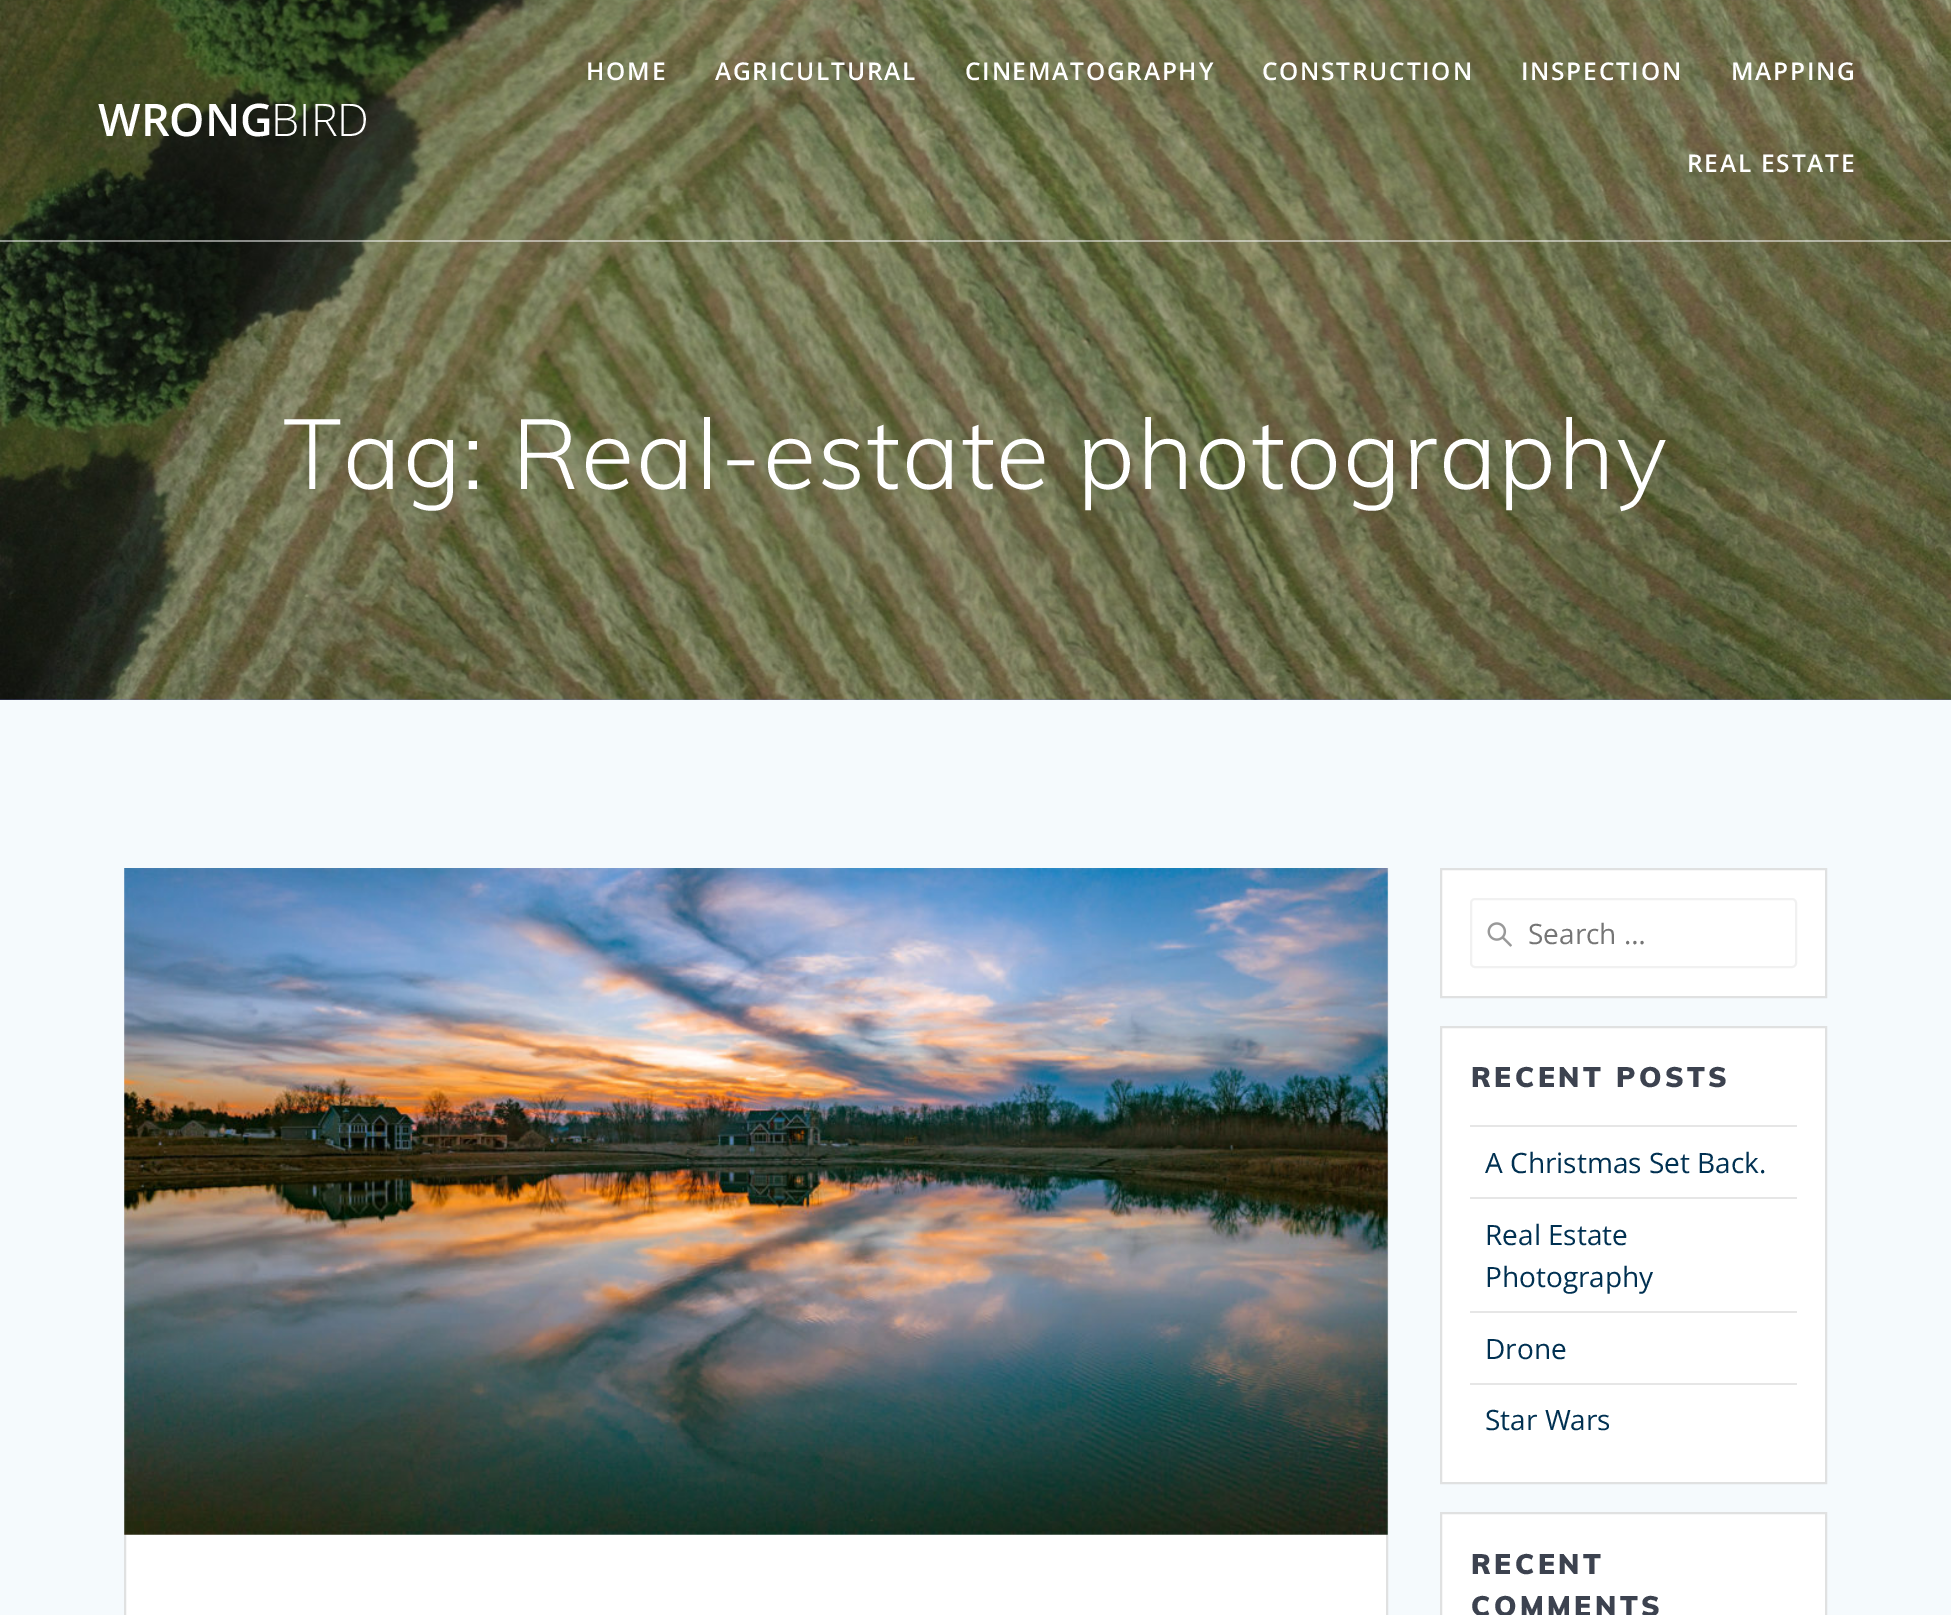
%!PS-Adobe-3.0
%%BoundingBox: 0 0 1951 1615
%%LanguageLevel: 3
%%Pages: 1
%%EndComments
%%BeginProlog
/setalpha { dup .setfillconstantalpha .setstrokeconstantalpha } def
/rrect { 5 dict begin { /r /h /w /y /x } { exch def } forall
  x r add y moveto x w add y 2 copy h add r arct x w add y h add x 1 index r arct
  x y h add x y r arct x y 2 copy exch w add exch r arct closepath end } def
/drawimage { 5 dict begin { /h /w /y /x /name } { exch def } forall
  gsave x y translate w h scale
  w h 8 [w 0 0 h 0 0] name (r) file false 3 colorimage grestore end } def
%%EndProlog
%%BeginSetup
<< /PageSize [1951 1615] /PageUsesTransparency true >> setpagedevice
%%EndSetup
%%Page: 1 1
0 .pushpdf14devicefilter
0 1615 translate 1 -1 scale
4 setmiterlimit
1 setgray
0 0 1951 1615 rectfill
(images/1.raw) 0 0 1951 700 drawimage
0.5 setalpha
0 240 1951 2 rectfill
1 setalpha
0.961 0.98 0.992 setrgbcolor
0 700 1951 915 rectfill
1 setgray
126 1534 1260 81 rectfill
0.878 0.882 0.882 setrgbcolor
2 setlinewidth
125 869 1262 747 rectstroke
(images/2.raw) 124 868 1264 667 drawimage
1 setgray
newpath 1441 869 moveto 1826 869 lineto 1826 997 lineto 1441 997 lineto closepath gsave fill grestore
0.878 0.882 0.882 setrgbcolor
stroke
(images/3.raw) 1487 922 25 25 drawimage
0.945 setgray
1471 899 325 68 4 rrect stroke
1 setgray
newpath 1441 1027 moveto 1826 1027 lineto 1826 1483 lineto 1441 1483 lineto closepath gsave fill grestore
0.878 0.882 0.882 setrgbcolor
stroke
0.902 setgray
1470 1125 327 2 rectfill
1470 1197 327 2 rectfill
1470 1311 327 2 rectfill
1470 1383 327 2 rectfill
1 setgray
newpath 1441 1513 moveto 1826 1513 lineto 1826 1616 lineto 1441 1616 lineto closepath gsave fill grestore
0.878 0.882 0.882 setrgbcolor
stroke
/OpenSans-SemiBold [45 0 0 -45 0 0] selectfont
1 setgray
98 136 moveto (WRONG) show
/OpenSans-Light [45 0 0 -45 0 0] selectfont
271 136 moveto (BIRD) show
/OpenSans-SemiBold [24.5 0 0 -24.5 0 0] selectfont
586 80 moveto 1.75 0 (HOME) ashow
715 80 moveto 1.75 0 (AGRICULTURAL) ashow
965 80 moveto 1.75 0 (CINEMATOGRAPHY) ashow
1262 80 moveto 1.75 0 (CONSTRUCTION) ashow
1521 80 moveto 1.75 0 (INSPECTION) ashow
1731 80 moveto 1.75 0 (MAPPING) ashow
1687 172 moveto 1.75 0 (REAL ESTATE) ashow
/Muli-Light [98 0 0 -98 0 0] selectfont
283 489 moveto 1.6 0 (Tag: Real-estate photography) ashow
/OpenSans-Regular [28 0 0 -28 0 0] selectfont
0.459 setgray
1528 944 moveto (Search …) show
/Muli-Black [28 0 0 -28 0 0] selectfont
0.235 0.259 0.31 setrgbcolor
1471 1087 moveto 3.5 0 (RECENT POSTS) ashow
/OpenSans-Regular [28 0 0 -28 0 0] selectfont
0 0.188 0.318 setrgbcolor
1485 1173 moveto (A Christmas Set Back.) show
1485 1245 moveto (Real Estate) show
1485 1287 moveto (Photography) show
1485 1359 moveto (Drone) show
1485 1430 moveto (Star Wars) show
/Muli-Black [28 0 0 -28 0 0] selectfont
0.235 0.259 0.31 setrgbcolor
1471 1574 moveto 3.5 0 (RECENT) ashow
1471 1616 moveto 3.5 0 (COMMENTS) ashow
.poppdf14devicefilter showpage
%%EOF
